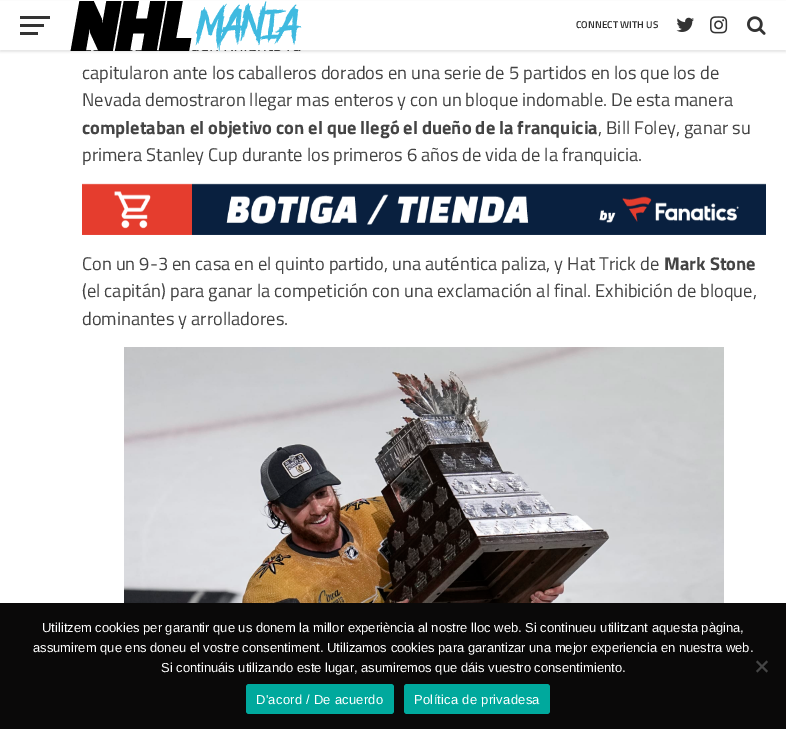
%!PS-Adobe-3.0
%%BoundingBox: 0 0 786 729
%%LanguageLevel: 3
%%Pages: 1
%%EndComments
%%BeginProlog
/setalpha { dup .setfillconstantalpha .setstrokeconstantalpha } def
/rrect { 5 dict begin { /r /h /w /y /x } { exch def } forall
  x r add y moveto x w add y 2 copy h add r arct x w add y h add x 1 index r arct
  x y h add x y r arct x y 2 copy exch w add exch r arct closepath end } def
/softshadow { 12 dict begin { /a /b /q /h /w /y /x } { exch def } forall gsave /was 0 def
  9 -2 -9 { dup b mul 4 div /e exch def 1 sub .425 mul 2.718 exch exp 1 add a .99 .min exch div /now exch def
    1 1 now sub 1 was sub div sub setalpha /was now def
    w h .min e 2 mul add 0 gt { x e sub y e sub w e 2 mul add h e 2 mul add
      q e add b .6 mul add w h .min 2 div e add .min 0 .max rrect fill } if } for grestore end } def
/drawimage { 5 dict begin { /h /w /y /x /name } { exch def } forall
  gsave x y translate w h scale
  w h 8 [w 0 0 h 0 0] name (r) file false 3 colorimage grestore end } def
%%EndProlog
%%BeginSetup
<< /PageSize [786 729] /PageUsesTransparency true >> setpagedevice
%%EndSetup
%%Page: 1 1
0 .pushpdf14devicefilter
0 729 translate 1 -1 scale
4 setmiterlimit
1 setgray
0 0 786 729 rectfill
0 setgray
0 2 786 50 0 1 0.1 softshadow
1 setgray
0 1 786 49 rectfill
0.2 setgray
20 16 30 3 rectfill
20 24 24 3 rectfill
20 32 18 3 rectfill
(images/1.raw) 70 1 232 50 drawimage
(images/2.raw) 676 17 18 15 drawimage
(images/3.raw) 710 16 18 18 drawimage
(images/4.raw) 747 16 19 19 drawimage
(images/5.raw) 82 183 684 52 drawimage
(images/6.raw) 124 347 600 256 drawimage
0.039 0.035 0.035 setrgbcolor
0 603 786 126 rectfill
0.271 setgray
newpath 766.5 660.5 moveto 768 662 lineto 757.5 672.5 lineto 756 671 lineto closepath fill
newpath 756 662 moveto 757.5 660.5 lineto 768 671 lineto 766.5 672.5 lineto closepath fill
0 0.663 0.616 setrgbcolor
246 684 148 30 3 rrect fill
404 684 146 30 3 rrect fill
/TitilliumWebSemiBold-SemiBold [10 0 0 -10 0 0] selectfont
0.2 setgray
576 28 moveto (CONNECT WITH US) show
/TitilliumWeb-Regular [18.4 0 0 -18.4 0 0] selectfont
0.267 setgray
82 79 moveto (capitularon ante los caballeros dorados en una serie de 5 partidos en los que los de) show
82 106 moveto (Nevada demostraron llegar mas enteros y con un bloque indomable. De esta manera) show
/TitilliumWeb-Bold [18.4 0 0 -18.4 0 0] selectfont
82 134 moveto (completaban el objetivo con el que llegó el dueño de la franquicia) show
/TitilliumWeb-Regular [18.4 0 0 -18.4 0 0] selectfont
598 134 moveto (, Bill Foley, ganar su) show
82 161 moveto (primera Stanley Cup durante los primeros 6 años de vida de la franquicia.) show
82 270 moveto (Con un 9-3 en casa en el quinto partido, una auténtica paliza, y Hat Trick de) show
/TitilliumWeb-Bold [18.4 0 0 -18.4 0 0] selectfont
664 270 moveto (Mark Stone) show
/TitilliumWeb-Regular [18.4 0 0 -18.4 0 0] selectfont
82 297 moveto (\(el capitán\) para ganar la competición con una exclamación al final. Exhibición de bloque,) show
82 325 moveto (dominantes y arrolladores.) show
/LiberationSans-Regular [13 0 0 -13 0 0] selectfont
1 setgray
42 632 moveto (Utilitzem cookies per garantir que us donem la millor experiència al nostre lloc web. Si continueu utilitzant aquesta pàgina,) show
33 652 moveto (assumirem que ens doneu el vostre consentiment. Utilizamos cookies para garantizar una mejor experiencia en nuestra web.) show
161 672 moveto (Si continuáis utilizando este lugar, asumiremos que dáis vuestro consentimiento.) show
256 704 moveto 0.25 0 (D'acord / De acuerdo) ashow
414 704 moveto 0.25 0 (Política de privadesa) ashow
.poppdf14devicefilter showpage
%%EOF
